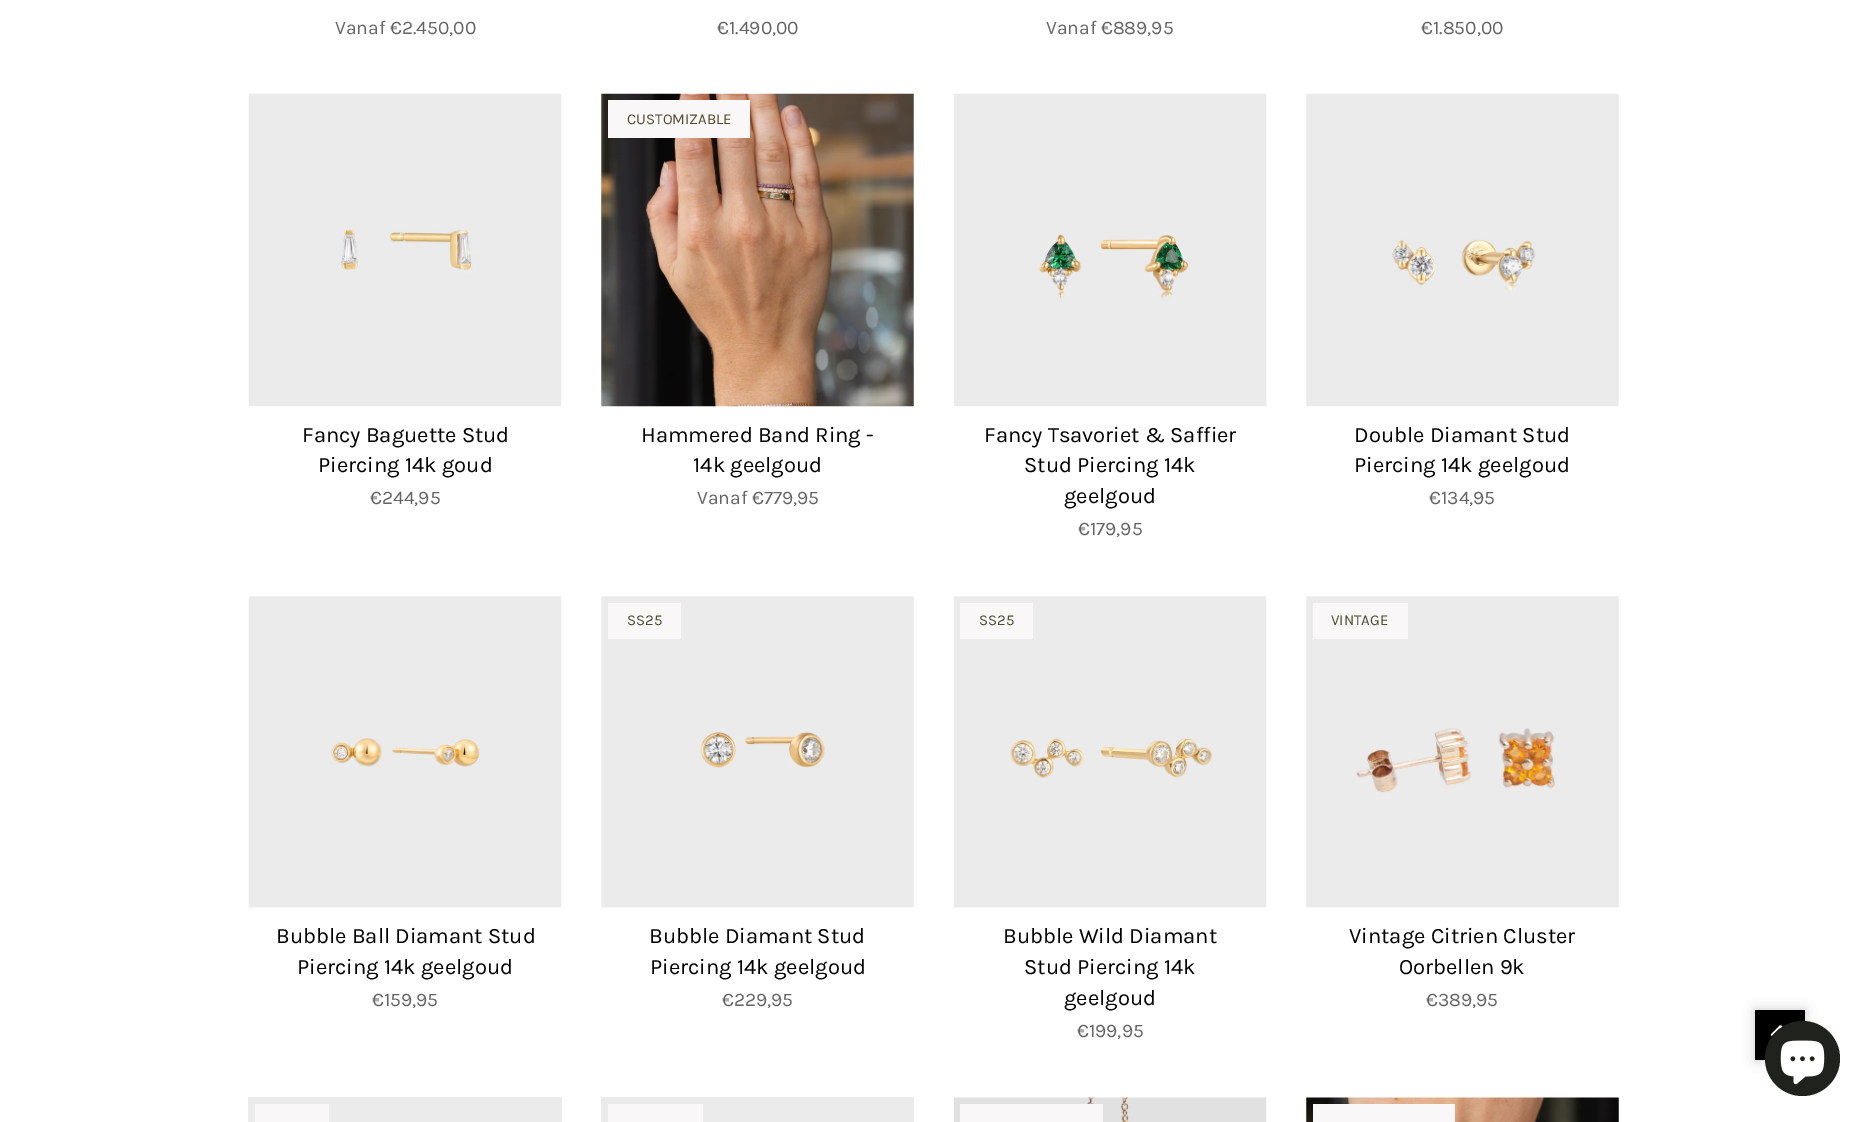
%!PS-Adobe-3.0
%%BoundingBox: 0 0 1867 1122
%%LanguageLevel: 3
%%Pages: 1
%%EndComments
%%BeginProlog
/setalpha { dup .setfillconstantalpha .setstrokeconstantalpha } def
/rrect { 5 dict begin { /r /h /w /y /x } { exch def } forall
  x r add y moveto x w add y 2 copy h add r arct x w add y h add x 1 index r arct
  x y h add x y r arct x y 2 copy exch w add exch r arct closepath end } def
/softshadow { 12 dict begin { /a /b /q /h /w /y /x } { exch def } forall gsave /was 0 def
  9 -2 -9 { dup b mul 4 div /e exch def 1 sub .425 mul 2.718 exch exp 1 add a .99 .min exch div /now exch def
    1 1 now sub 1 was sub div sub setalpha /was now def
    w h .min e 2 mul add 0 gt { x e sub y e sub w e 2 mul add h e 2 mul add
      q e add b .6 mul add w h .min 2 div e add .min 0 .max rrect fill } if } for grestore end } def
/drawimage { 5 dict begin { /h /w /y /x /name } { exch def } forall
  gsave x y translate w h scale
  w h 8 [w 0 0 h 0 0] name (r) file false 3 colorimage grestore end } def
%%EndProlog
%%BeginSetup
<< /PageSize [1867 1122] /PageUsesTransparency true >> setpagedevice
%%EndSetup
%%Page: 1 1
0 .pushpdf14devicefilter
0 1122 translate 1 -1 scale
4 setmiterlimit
1 setgray
0 0 1867 1122 rectfill
(images/1.raw) 248 93 314 314 drawimage
(images/2.raw) 601 93 313 314 drawimage
0.976 0.969 0.969 setrgbcolor
608 100 142 38 rectfill
(images/3.raw) 953 93 314 314 drawimage
(images/4.raw) 1306 93 313 314 drawimage
(images/5.raw) 248 596 314 312 drawimage
(images/6.raw) 601 596 313 312 drawimage
608 603 73 36 rectfill
(images/7.raw) 953 596 314 312 drawimage
960 603 73 36 rectfill
(images/8.raw) 1306 596 313 312 drawimage
1313 603 95 36 rectfill
0.922 setgray
248 1097 314 25 rectfill
0.976 0.969 0.969 setrgbcolor
255 1104 74 18 rectfill
0.922 setgray
601 1097 313 25 rectfill
0.976 0.969 0.969 setrgbcolor
608 1104 95 18 rectfill
(images/9.raw) 953 1097 314 25 drawimage
960 1104 143 18 rectfill
(images/10.raw) 1306 1097 313 25 drawimage
1313 1104 142 18 rectfill
0 setgray
1755 1010 50 50 0 6 0.2 softshadow
1755 1010 50 50 rectfill
1 setgray
1.5 setlinewidth
1 setlinecap
1 setlinejoin
newpath 1780.5 1044.5 moveto 1780.5 1026 lineto 1780.5 1026 moveto 1789 1035 lineto 1780.5 1026 moveto 1771.5 1035 lineto stroke
0.125 0.137 0.114 setrgbcolor
newpath 1802.5 1058.5 37.5 0 360 arc closepath fill
(images/11.raw) 1780 1040 45 45 drawimage
/Karla-Regular [19.25 0 0 -19.25 0 0] selectfont
0.392 setgray
335 34 moveto (Vanaf €2.450,00) show
717 34 moveto (€1.490,00) show
1046 34 moveto (Vanaf €889,95) show
1421 34 moveto (€1.850,00) show
/Karla-Regular [22 0 0 -22 0 0] selectfont
0 setgray
302 442 moveto (Fancy Baguette Stud) show
318 472 moveto (Piercing 14k goud) show
/Karla-Regular [19.25 0 0 -19.25 0 0] selectfont
0.392 setgray
370 504 moveto (€244,95) show
/Karla-Regular [15 0 0 -15 0 0] selectfont
0.318 0.294 0.18 setrgbcolor
627 124 moveto (CUSTOMIZABLE) show
/Karla-Regular [22 0 0 -22 0 0] selectfont
0 setgray
641 442 moveto (Hammered Band Ring -) show
693 472 moveto (14k geelgoud) show
/Karla-Regular [19.25 0 0 -19.25 0 0] selectfont
0.392 setgray
697 504 moveto (Vanaf €779,95) show
/Karla-Regular [22 0 0 -22 0 0] selectfont
0 setgray
984 442 moveto (Fancy Tsavoriet & Saffier) show
1024 472 moveto (Stud Piercing 14k) show
1064 503 moveto (geelgoud) show
/Karla-Regular [19.25 0 0 -19.25 0 0] selectfont
0.392 setgray
1078 535 moveto (€179,95) show
/Karla-Regular [22 0 0 -22 0 0] selectfont
0 setgray
1354 442 moveto (Double Diamant Stud) show
1354 472 moveto (Piercing 14k geelgoud) show
/Karla-Regular [19.25 0 0 -19.25 0 0] selectfont
0.392 setgray
1429 504 moveto (€134,95) show
/Karla-Regular [22 0 0 -22 0 0] selectfont
0 setgray
276 943 moveto (Bubble Ball Diamant Stud) show
297 974 moveto (Piercing 14k geelgoud) show
/Karla-Regular [19.25 0 0 -19.25 0 0] selectfont
0.392 setgray
372 1006 moveto (€159,95) show
/Karla-Regular [15 0 0 -15 0 0] selectfont
0.318 0.294 0.18 setrgbcolor
627 625 moveto (SS25) show
/Karla-Regular [22 0 0 -22 0 0] selectfont
0 setgray
649 943 moveto (Bubble Diamant Stud) show
650 974 moveto (Piercing 14k geelgoud) show
/Karla-Regular [19.25 0 0 -19.25 0 0] selectfont
0.392 setgray
722 1006 moveto (€229,95) show
/Karla-Regular [15 0 0 -15 0 0] selectfont
0.318 0.294 0.18 setrgbcolor
979 625 moveto (SS25) show
/Karla-Regular [22 0 0 -22 0 0] selectfont
0 setgray
1003 943 moveto (Bubble Wild Diamant) show
1024 974 moveto (Stud Piercing 14k) show
1064 1005 moveto (geelgoud) show
/Karla-Regular [19.25 0 0 -19.25 0 0] selectfont
0.392 setgray
1077 1037 moveto (€199,95) show
/Karla-Regular [15 0 0 -15 0 0] selectfont
0.318 0.294 0.18 setrgbcolor
1331 625 moveto (VINTAGE) show
/Karla-Regular [22 0 0 -22 0 0] selectfont
0 setgray
1349 943 moveto (Vintage Citrien Cluster) show
1399 974 moveto (Oorbellen 9k) show
/Karla-Regular [19.25 0 0 -19.25 0 0] selectfont
0.392 setgray
1426 1006 moveto (€389,95) show
.poppdf14devicefilter showpage
%%EOF
